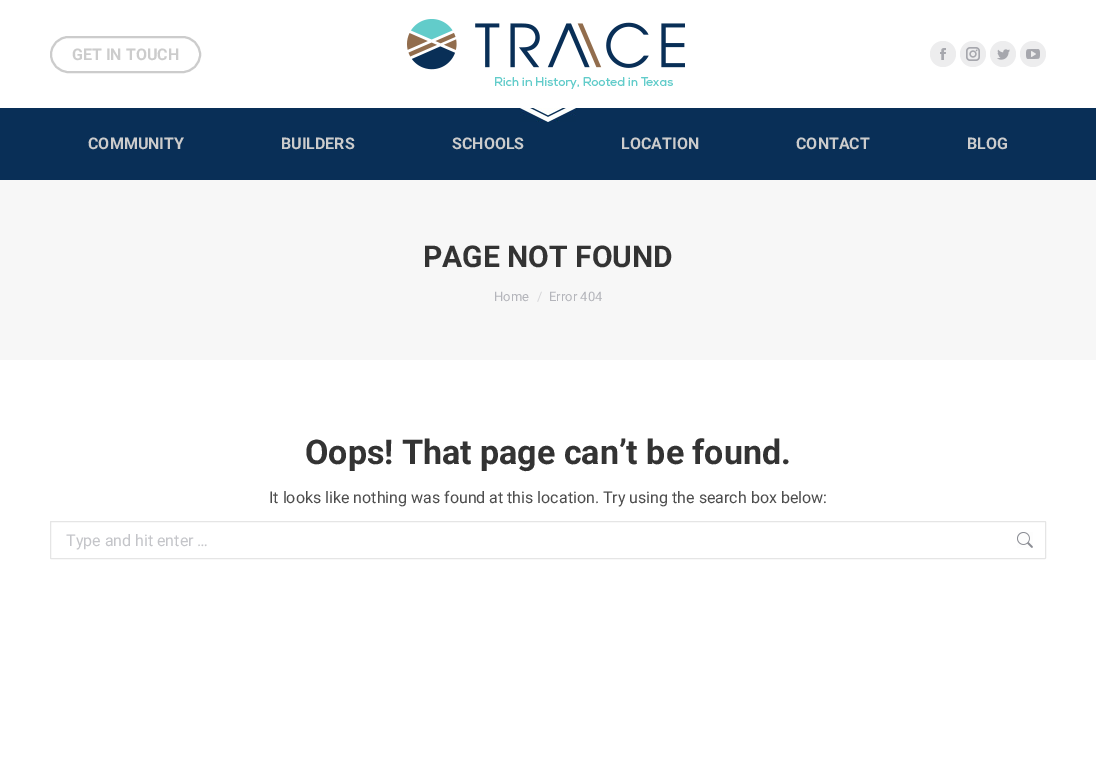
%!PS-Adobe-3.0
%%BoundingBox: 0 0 1096 763
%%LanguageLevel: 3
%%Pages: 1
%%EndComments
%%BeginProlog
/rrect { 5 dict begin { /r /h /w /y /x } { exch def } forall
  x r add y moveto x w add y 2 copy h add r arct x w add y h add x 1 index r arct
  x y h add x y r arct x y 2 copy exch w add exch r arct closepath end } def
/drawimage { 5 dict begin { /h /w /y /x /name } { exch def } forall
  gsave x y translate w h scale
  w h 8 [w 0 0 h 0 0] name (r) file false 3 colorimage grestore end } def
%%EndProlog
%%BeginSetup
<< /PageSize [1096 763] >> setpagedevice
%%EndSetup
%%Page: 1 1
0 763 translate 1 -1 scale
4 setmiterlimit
1 setgray
0 0 1096 763 rectfill
0.8 setgray
2 setlinewidth
51 37 149 35 17.5 rrect stroke
(images/1.raw) 407 19 278 70 drawimage
0.929 0.929 0.933 setrgbcolor
newpath 943 54 13 0 360 arc closepath fill
(images/2.raw) 940 48 6 12 drawimage
newpath 973 54 13 0 360 arc closepath fill
(images/3.raw) 966 47 14 14 drawimage
newpath 1003 54 13 0 360 arc closepath fill
(images/4.raw) 997 49 13 11 drawimage
newpath 1033 54 13 0 360 arc closepath fill
(images/5.raw) 1026 49 14 10 drawimage
0.035 0.184 0.341 setrgbcolor
0 108 1096 72 rectfill
(images/6.raw) 520 108 56 14 drawimage
0.969 setgray
0 180 1096 180 rectfill
0.898 setgray
1 setlinewidth
50.5 521.5 995 37 0.5 rrect stroke
(images/7.raw) 1017 532 16 16 drawimage
/Roboto-Bold [16 0 0 -16 0 0] selectfont
0.8 setgray
72 60 moveto (GET IN TOUCH) show
88 149 moveto (COMMUNITY) show
281 149 moveto (BUILDERS) show
452 149 moveto (SCHOOLS) show
621 149 moveto (LOCATION) show
796 149 moveto (CONTACT) show
967 149 moveto (BLOG) show
/Roboto-Bold [30 0 0 -30 0 0] selectfont
0.2 setgray
423 267 moveto (PAGE NOT FOUND) show
/Roboto-Regular [13 0 0 -13 0 0] selectfont
0.706 0.71 0.733 setrgbcolor
494 301 moveto (Home) show
0.839 0.839 0.851 setrgbcolor
537 301 moveto (/) show
0.706 0.71 0.733 setrgbcolor
549 301 moveto (Error 404) show
/Roboto-Bold [34 0 0 -34 0 0] selectfont
0.2 setgray
305 464 moveto (Oops! That page can’t be found.) show
/Roboto-Regular [16 0 0 -16 0 0] selectfont
0.302 setgray
269 503 moveto (It looks like nothing was found at this location. Try using the search box below:) show
0.769 0.773 0.788 setrgbcolor
66 546 moveto (Type and hit enter …) show
showpage
%%EOF
